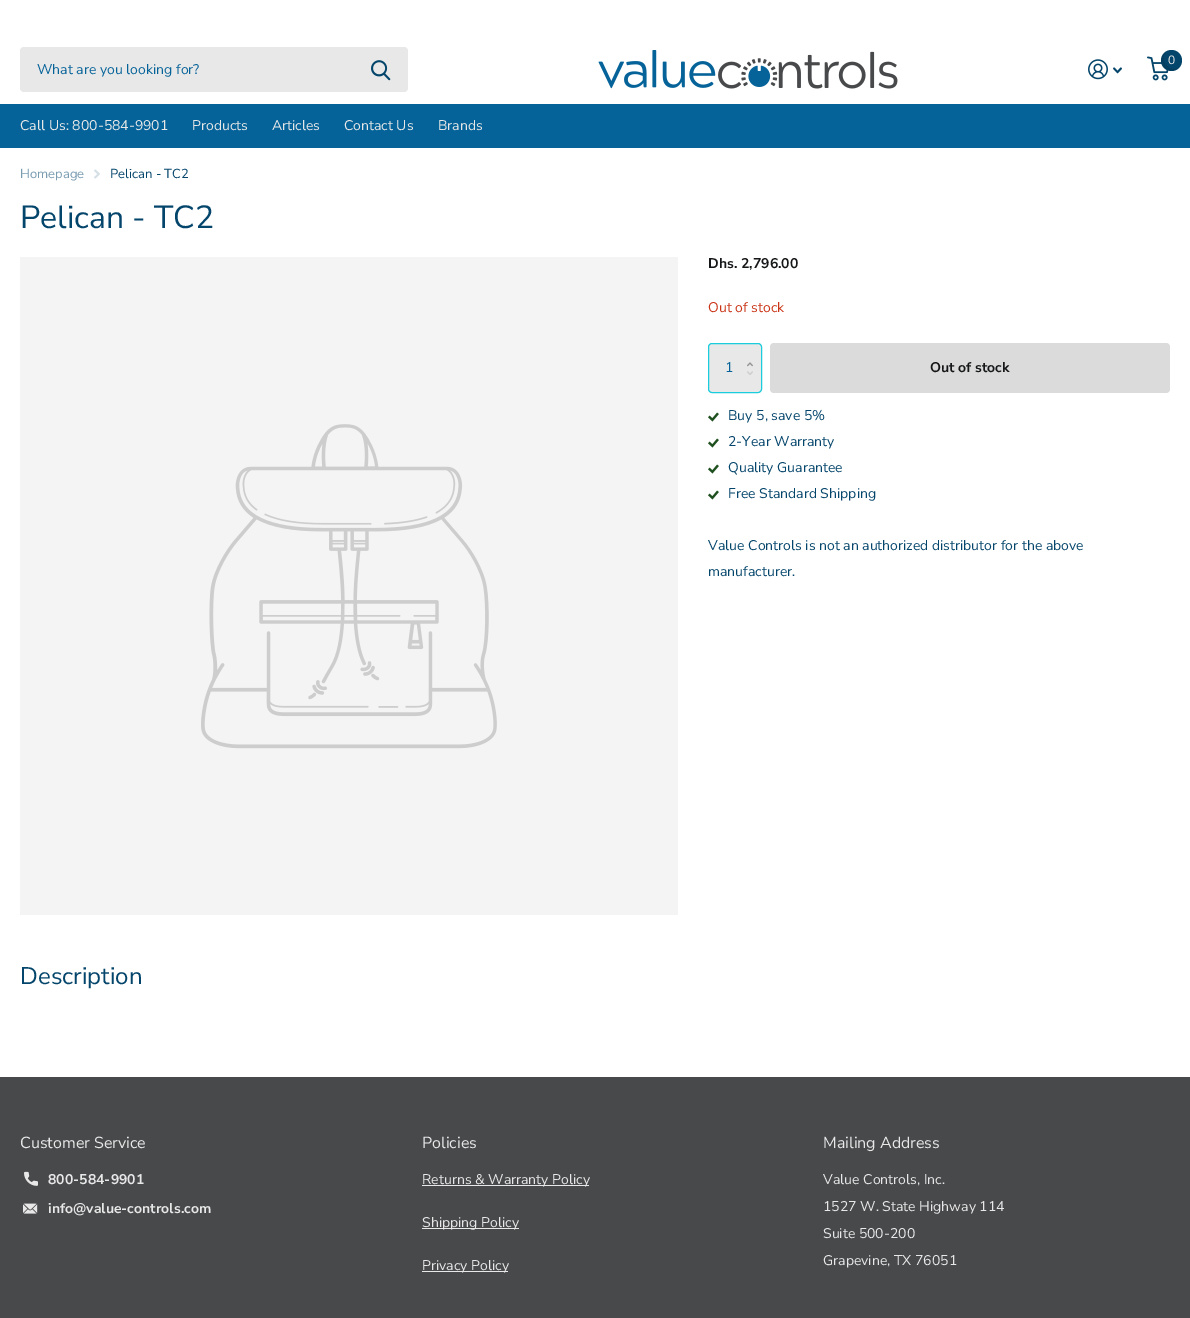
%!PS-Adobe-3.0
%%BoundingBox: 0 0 1190 1318
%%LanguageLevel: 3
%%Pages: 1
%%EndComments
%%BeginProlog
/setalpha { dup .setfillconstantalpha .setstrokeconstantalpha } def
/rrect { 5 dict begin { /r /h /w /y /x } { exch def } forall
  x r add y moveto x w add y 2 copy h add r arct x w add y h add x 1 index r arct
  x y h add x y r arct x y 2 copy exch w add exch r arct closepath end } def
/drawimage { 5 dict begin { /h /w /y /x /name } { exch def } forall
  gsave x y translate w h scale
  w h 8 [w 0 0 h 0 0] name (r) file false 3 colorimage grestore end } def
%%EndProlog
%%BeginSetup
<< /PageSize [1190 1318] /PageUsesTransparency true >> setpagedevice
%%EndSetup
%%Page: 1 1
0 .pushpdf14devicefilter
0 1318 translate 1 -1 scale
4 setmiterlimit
1 setgray
0 0 1190 1318 rectfill
(images/1.raw) 1088 59 20 21 drawimage
(images/2.raw) 1113 67 9 7 drawimage
(images/3.raw) 1147 56 22 25 drawimage
0.016 0.271 0.42 setrgbcolor
newpath 1171.5 60.5 10.5 0 360 arc closepath fill
0.1 setalpha
0 setgray
newpath 1179.5 67.5 moveto 1170 73.5 1158.5 61 1166 51.5 curveto 1160.5 55.5 1159.5 63 1164 68 curveto 1168.5 72 1175.5 72 1179.5 67.5 curveto closepath fill
1 setalpha
0.91 setgray
20 47 388 45 4 rrect fill
(images/4.raw) 371 60 20 21 drawimage
(images/5.raw) 598 50 300 39 drawimage
0.024 0.388 0.6 setrgbcolor
0 104 1190 44 rectfill
(images/6.raw) 94 169 6 10 drawimage
0.91 setgray
708.5 343.5 53 49 3.5 rrect gsave fill grestore
0.102 0.8 0.863 setrgbcolor
stroke
(images/7.raw) 747 362 6 5 drawimage
(images/8.raw) 747 371 6 4 drawimage
0.859 setgray
770 343 400 50 4 rrect fill
(images/9.raw) 708 412 11 10 drawimage
(images/9.raw) 708 438 11 10 drawimage
(images/9.raw) 708 464 11 10 drawimage
(images/9.raw) 708 490 11 10 drawimage
0.957 setgray
20 257 658 658 rectfill
(images/10.raw) 201 424 296 325 drawimage
0.282 0.286 0.294 setrgbcolor
0 1077 1190 241 rectfill
(images/11.raw) 24 1171 14 15 drawimage
(images/12.raw) 23 1203 15 11 drawimage
0.91 setgray
422 1185 167 1 rectfill
422 1228 97 1 rectfill
422 1271 86 1 rectfill
/NunitoSans-Regular [12 0 0 -12 0 0] selectfont
1168 64 moveto (0) show
/NunitoSans-Regular [14 0 0 -14 0 0] selectfont
0.024 0.388 0.6 setrgbcolor
37 74 moveto (What are you looking for?) show
0.91 setgray
20 130 moveto (Call Us: 800-584-9901) show
192 130 moveto (Products) show
272 130 moveto (Articles) show
344 130 moveto (Contact Us) show
438 130 moveto (Brands) show
/NunitoSans-Regular [13 0 0 -13 0 0] selectfont
0.478 0.612 0.694 setrgbcolor
20 178 moveto (Homepage) show
0.016 0.271 0.42 setrgbcolor
110 178 moveto (Pelican - TC2) show
/NunitoSans-Regular [32 0 0 -32 0 0] selectfont
20 228 moveto (Pelican - TC2) show
/NunitoSans-Bold [14 0 0 -14 0 0] selectfont
0.086 0.09 0.094 setrgbcolor
708 268 moveto (Dhs. 2,796.00) show
/NunitoSans-Regular [14 0 0 -14 0 0] selectfont
0.792 0.204 0.086 setrgbcolor
708 312 moveto (Out of stock) show
0.024 0.388 0.6 setrgbcolor
725 372 moveto (1) show
/NunitoSans-Bold [14 0 0 -14 0 0] selectfont
0.086 0.09 0.094 setrgbcolor
930 372 moveto (Out of stock) show
/NunitoSans-Regular [14 0 0 -14 0 0] selectfont
0.016 0.271 0.42 setrgbcolor
728 420 moveto (Buy 5, save 5%) show
728 446 moveto (2-Year Warranty) show
728 472 moveto (Quality Guarantee) show
728 498 moveto (Free Standard Shipping) show
708 550 moveto (Value Controls is not an authorized distributor for the above) show
708 576 moveto (manufacturer.) show
/NunitoSans-Regular [24 0 0 -24 0 0] selectfont
20 984 moveto (Description) show
/NunitoSans-Regular [16 0 0 -16 0 0] selectfont
0.91 setgray
20 1148 moveto (Customer Service) show
/NunitoSans-Bold [14 0 0 -14 0 0] selectfont
48 1184 moveto (800-584-9901) show
48 1213 moveto (info@value-controls.com) show
/NunitoSans-Regular [16 0 0 -16 0 0] selectfont
422 1148 moveto (Policies) show
/NunitoSans-Regular [14 0 0 -14 0 0] selectfont
422 1184 moveto (Returns & Warranty Policy) show
422 1227 moveto (Shipping Policy) show
422 1270 moveto (Privacy Policy) show
/NunitoSans-Regular [16 0 0 -16 0 0] selectfont
823 1148 moveto (Mailing Address) show
/NunitoSans-Regular [14 0 0 -14 0 0] selectfont
823 1184 moveto (Value Controls, Inc.) show
823 1211 moveto (1527 W. State Highway 114) show
823 1238 moveto (Suite 500-200) show
823 1265 moveto (Grapevine, TX 76051) show
.poppdf14devicefilter showpage
%%EOF
